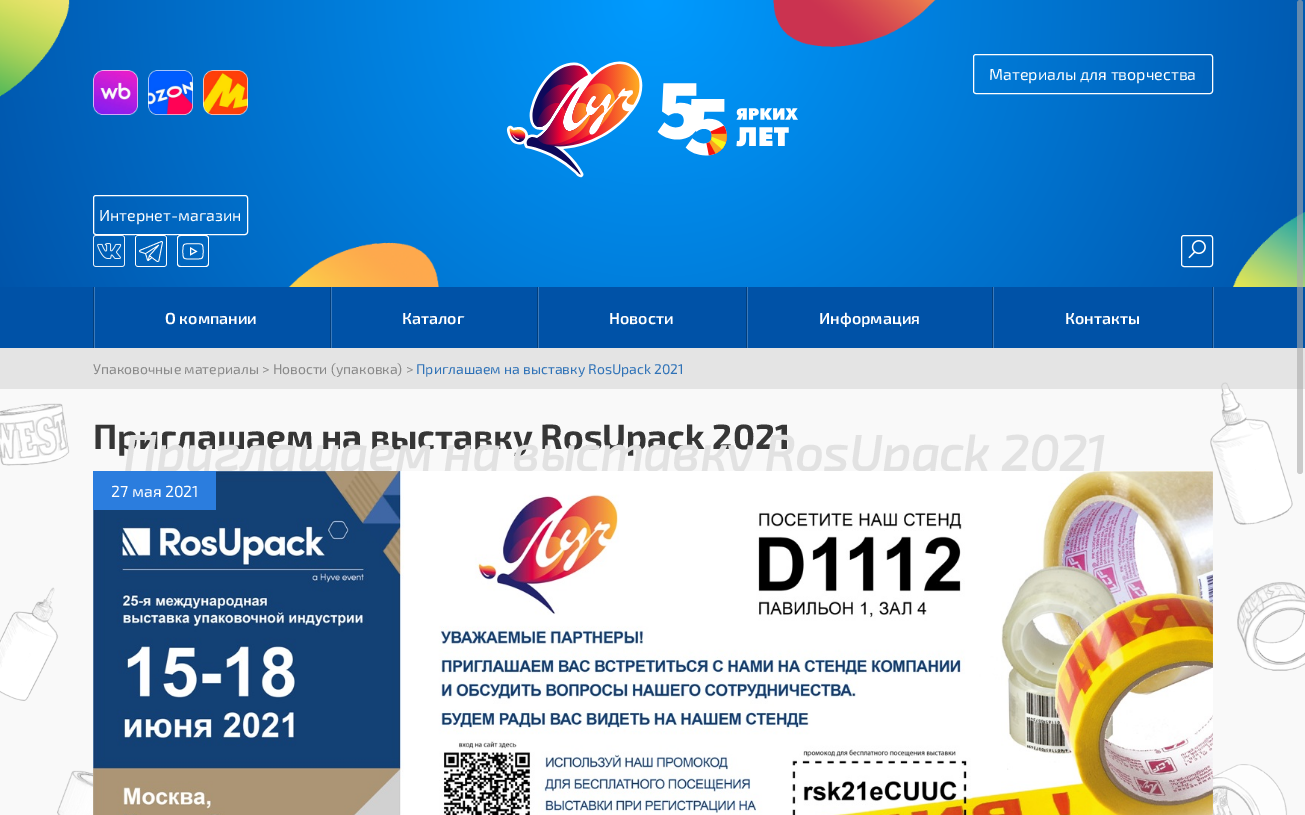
%!PS-Adobe-3.0
%%BoundingBox: 0 0 1305 815
%%LanguageLevel: 3
%%Pages: 1
%%EndComments
%%BeginProlog
/setalpha { dup .setfillconstantalpha .setstrokeconstantalpha } def
/rrect { 5 dict begin { /r /h /w /y /x } { exch def } forall
  x r add y moveto x w add y 2 copy h add r arct x w add y h add x 1 index r arct
  x y h add x y r arct x y 2 copy exch w add exch r arct closepath end } def
/drawimage { 5 dict begin { /h /w /y /x /name } { exch def } forall
  gsave x y translate w h scale
  w h 8 [w 0 0 h 0 0] name (r) file false 3 colorimage grestore end } def
%%EndProlog
%%BeginSetup
<< /PageSize [1305 815] /PageUsesTransparency true >> setpagedevice
%%EndSetup
%%Page: 1 1
0 .pushpdf14devicefilter
0 815 translate 1 -1 scale
4 setmiterlimit
1 setgray
0 0 1305 815 rectfill
gsave newpath 0 0 moveto 1305 0 lineto 1305 287 lineto 0 287 lineto closepath clip newpath 653 0 translate 740 740 scale
<< /ShadingType 3 /ColorSpace /DeviceRGB /Coords [0 0 0 0 0 1] /Extend [true true] /Function << /FunctionType 2 /Domain [0 1] /C0 [0 0.608 1] /C1 [0 0.322 0.655] /N 1 >> >> shfill grestore
(images/1.raw) 0 0 70 97 drawimage
(images/2.raw) 773 0 163 47 drawimage
(images/3.raw) 506 61 292 117 drawimage
973.5 54.5 239 39 2.5 rrect stroke
1181.5 235.5 31 31 2.5 rrect stroke
(images/4.raw) 1188 240 18 19 drawimage
(images/5.raw) 93 70 45 45 drawimage
(images/6.raw) 148 70 45 45 drawimage
(images/7.raw) 203 70 45 45 drawimage
93.5 195.5 154 39 2.5 rrect stroke
(images/8.raw) 93 235 32 32 drawimage
(images/9.raw) 135 235 32 32 drawimage
(images/10.raw) 177 235 32 32 drawimage
(images/11.raw) 288 242 151 45 drawimage
(images/12.raw) 1233 212 72 75 drawimage
0 0.322 0.655 setrgbcolor
0 287 1305 61 rectfill
0.231 0.478 0.733 setrgbcolor
94 287 1 61 rectfill
0.012 0.243 0.482 setrgbcolor
93 287 1 61 rectfill
0.231 0.478 0.733 setrgbcolor
331 287 1 61 rectfill
0.012 0.243 0.482 setrgbcolor
330 287 1 61 rectfill
0.231 0.478 0.733 setrgbcolor
538 287 1 61 rectfill
0.012 0.243 0.482 setrgbcolor
537 287 1 61 rectfill
0.231 0.478 0.733 setrgbcolor
747 287 1 61 rectfill
0.012 0.243 0.482 setrgbcolor
746 287 1 61 rectfill
0.231 0.478 0.733 setrgbcolor
993 287 1 61 rectfill
0.012 0.243 0.482 setrgbcolor
992 287 1 61 rectfill
0.231 0.478 0.733 setrgbcolor
1213 287 1 61 rectfill
0.012 0.243 0.482 setrgbcolor
1212 287 1 61 rectfill
(images/13.raw) 0 348 1305 467 drawimage
0.65 setalpha
0.847 setgray
0 348 1305 41 rectfill
0.6 setalpha
0.667 setgray
1297 0 6 474 3 rrect fill
/Exo2-Regular [16 0 0 -16 0 0] selectfont
1 setalpha
1 setgray
989 80 moveto (Материалы для творчества) show
99 221 moveto (Интернет-магазин) show
/Exo2-SemiBold [16 0 0 -16 0 0] selectfont
165 324 moveto (О компании) show
402 324 moveto (Каталог) show
609 324 moveto (Новости) show
819 324 moveto (Информация) show
1065 324 moveto (Контакты) show
/Exo2-Regular [14 0 0 -14 0 0] selectfont
0.537 setgray
93 374 moveto (Упаковочные материалы > Новости \(упаковка\) >) show
0.184 0.447 0.718 setrgbcolor
416 374 moveto (Приглашаем на выставку RosUpack 2021) show
/Exo2-Bold [35 0 0 -35 0 0] selectfont
0.212 setgray
93 449 moveto (Приглашаем на выставку RosUpack 2021) show
/Exo2-BoldItalic [50 0 0 -50 0 0] selectfont
0.886 setgray
123 471 moveto (Приглашаем на выставку RosUpack 2021) show
(images/14.raw) 93 471 1120 344 drawimage
0.169 0.49 0.871 setrgbcolor
93 471 123 39 rectfill
/Exo2-Regular [16 0 0 -16 0 0] selectfont
1 setgray
111 497 moveto (27 мая 2021) show
.poppdf14devicefilter showpage
%%EOF
